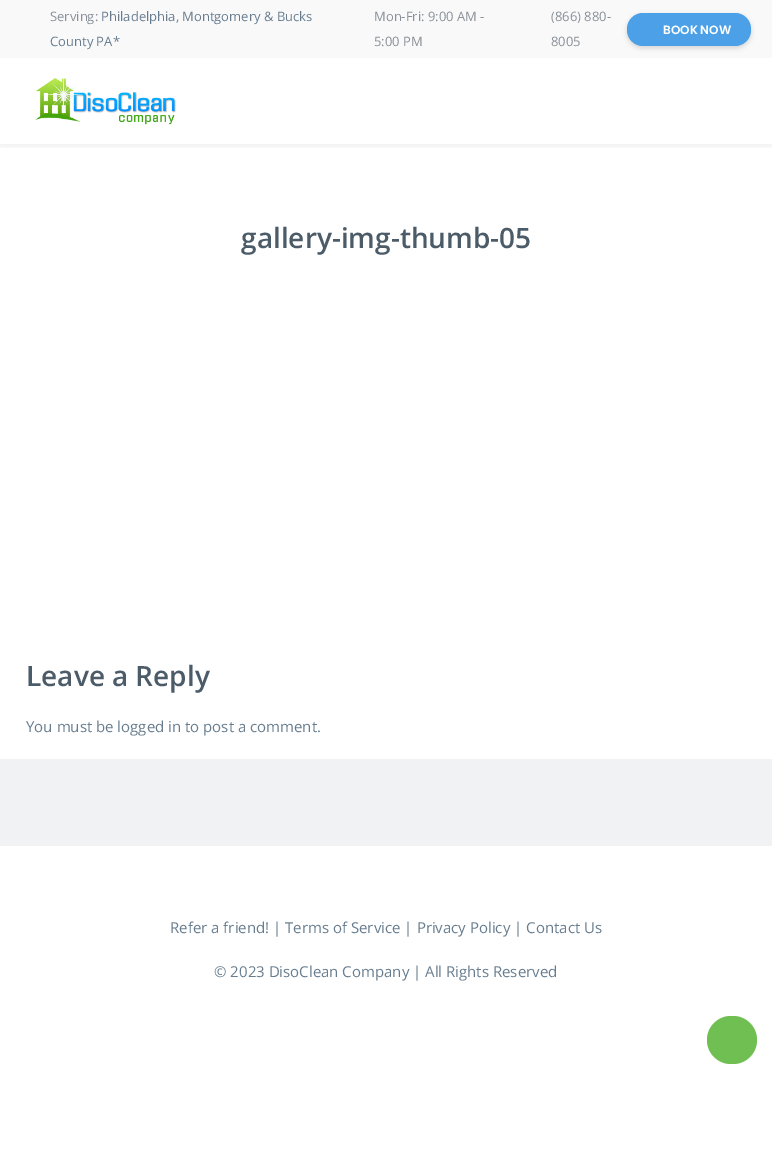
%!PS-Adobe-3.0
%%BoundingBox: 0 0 772 1164
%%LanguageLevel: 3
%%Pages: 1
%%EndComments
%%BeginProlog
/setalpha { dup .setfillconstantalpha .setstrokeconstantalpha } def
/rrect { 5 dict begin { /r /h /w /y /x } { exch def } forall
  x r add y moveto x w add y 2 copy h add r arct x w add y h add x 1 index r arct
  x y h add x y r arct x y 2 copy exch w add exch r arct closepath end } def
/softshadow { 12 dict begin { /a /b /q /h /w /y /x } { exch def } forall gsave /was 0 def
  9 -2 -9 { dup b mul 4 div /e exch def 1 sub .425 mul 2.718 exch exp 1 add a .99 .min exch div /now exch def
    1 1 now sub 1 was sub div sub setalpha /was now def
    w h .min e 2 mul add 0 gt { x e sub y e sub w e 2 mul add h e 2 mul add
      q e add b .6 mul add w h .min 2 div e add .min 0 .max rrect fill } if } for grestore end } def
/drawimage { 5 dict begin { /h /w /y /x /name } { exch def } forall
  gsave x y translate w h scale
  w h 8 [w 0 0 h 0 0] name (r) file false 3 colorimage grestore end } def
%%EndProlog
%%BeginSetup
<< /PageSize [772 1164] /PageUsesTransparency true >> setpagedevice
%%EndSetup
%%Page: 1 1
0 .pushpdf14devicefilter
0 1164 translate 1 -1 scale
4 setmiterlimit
1 setgray
0 0 772 1164 rectfill
gsave
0 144 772 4 rectclip
0 setgray
0 3 772 144 0 2.5 0.05 softshadow
grestore
0.976 0.976 0.98 setrgbcolor
0 0 772 58 rectfill
0 setgray
627 15 124 33 16 2.5 0.15 softshadow
0.294 0.627 0.91 setrgbcolor
627 13 124 33 16 rrect fill
(images/1.raw) 35 78 141 47 drawimage
0.945 0.949 0.953 setrgbcolor
0 759 772 87 rectfill
0.435 0.749 0.322 setrgbcolor
707 1016 50 48 24 rrect fill
/OpenSans-Regular [13 0 0 -13 0 0] selectfont
0.537 0.569 0.596 setrgbcolor
50 21 moveto (Serving:) show
0.404 0.49 0.561 setrgbcolor
101 21 moveto (Philadelphia, Montgomery & Bucks) show
50 46 moveto (County PA*) show
0.537 0.569 0.596 setrgbcolor
374 21 moveto (Mon-Fri: 9:00 AM -) show
374 46 moveto (5:00 PM) show
551 21 moveto (\(866\) 880-) show
551 46 moveto (8005) show
/Poppins-SemiBold [12 0 0 -12 0 0] selectfont
1 setgray
663 34 moveto (BOOK NOW) show
/OpenSans-SemiBold [28 0 0 -28 0 0] selectfont
0.294 0.357 0.408 setrgbcolor
241 248 moveto (gallery-img-thumb-05) show
26 686 moveto (Leave a Reply) show
/OpenSans-Regular [15 0 0 -15 0 0] selectfont
0.404 0.49 0.561 setrgbcolor
26 732 moveto (You must be logged in to post a comment.) show
170 933 moveto (Refer a friend! | Terms of Service | Privacy Policy | Contact Us) show
214 977 moveto (© 2023 DisoClean Company | All Rights Reserved) show
.poppdf14devicefilter showpage
%%EOF
